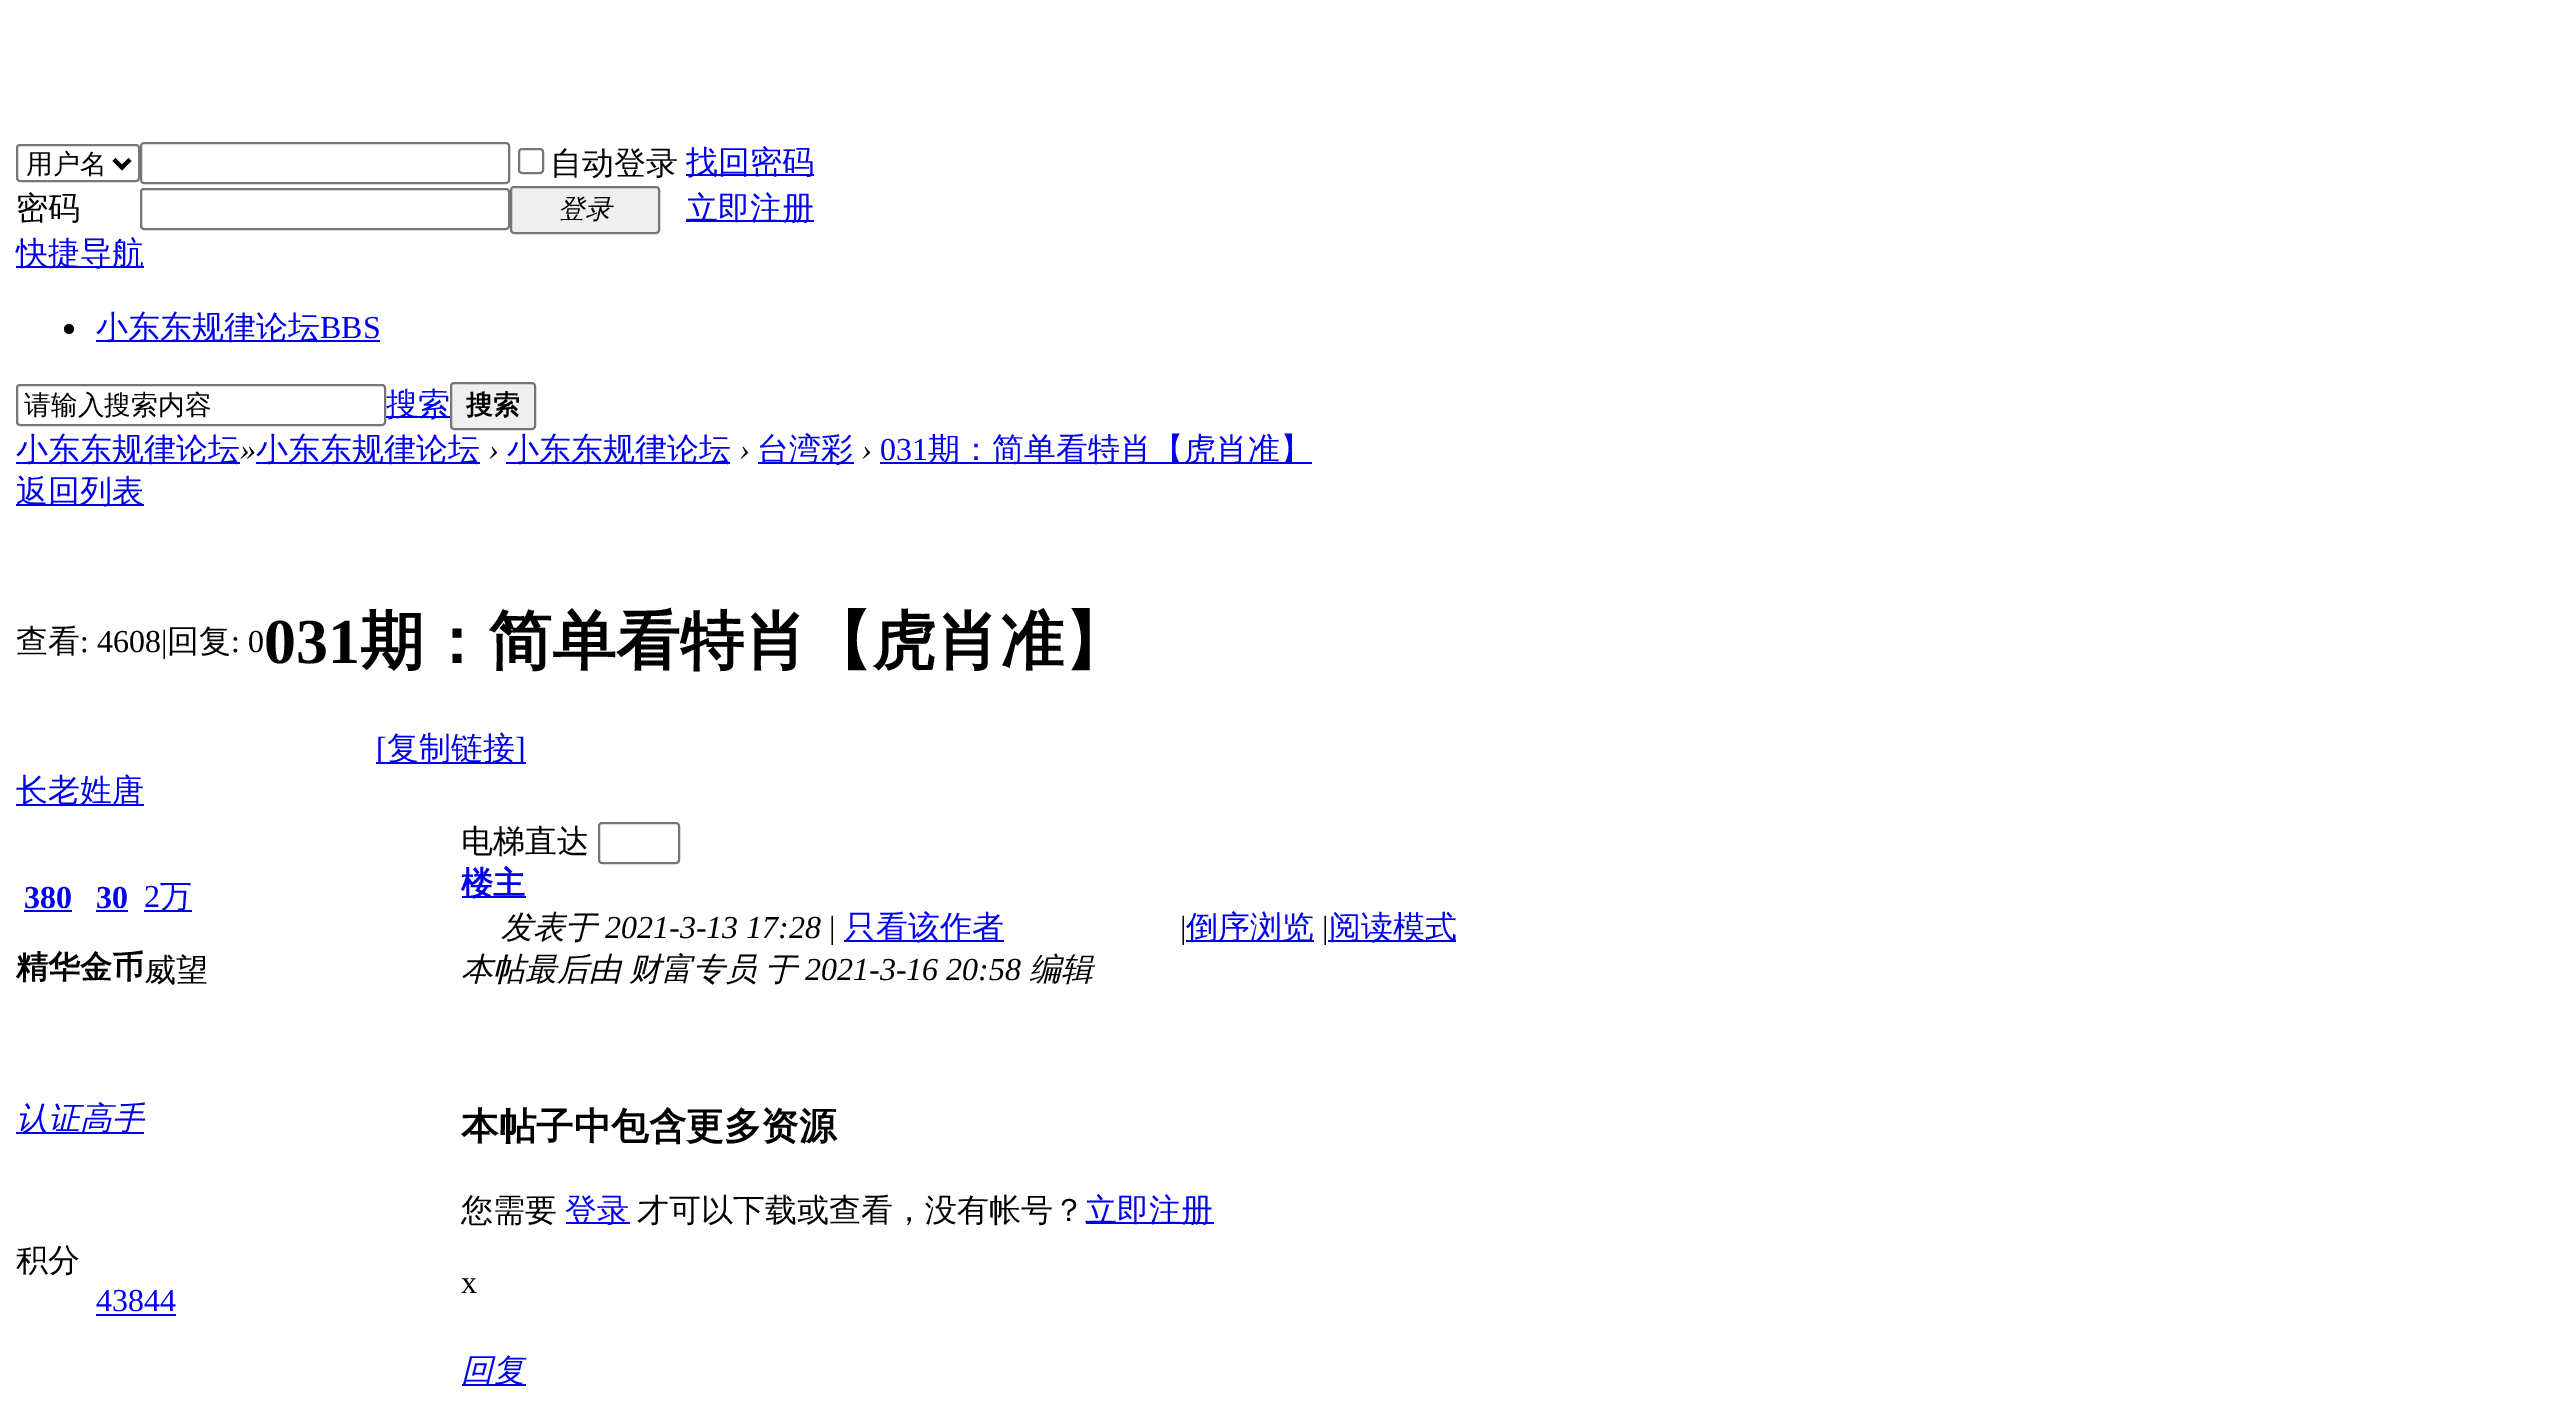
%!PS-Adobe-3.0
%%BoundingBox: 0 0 2551 1426
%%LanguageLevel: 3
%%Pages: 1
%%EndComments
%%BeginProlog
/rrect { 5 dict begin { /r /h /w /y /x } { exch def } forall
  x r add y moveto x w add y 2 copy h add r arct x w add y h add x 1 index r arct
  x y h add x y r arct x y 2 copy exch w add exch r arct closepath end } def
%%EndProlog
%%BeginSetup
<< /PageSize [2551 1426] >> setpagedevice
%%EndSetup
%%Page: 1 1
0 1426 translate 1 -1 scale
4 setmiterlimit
1 setgray
0 0 2551 1426 rectfill
0.463 setgray
2 setlinewidth
17 145 122 36 3 rrect stroke
0 setgray
4 setlinewidth
newpath 114 159.5 moveto 122 167.5 lineto 130 159.5 lineto stroke
0.463 setgray
2 setlinewidth
141 143 368 40 3 rrect stroke
519 149 24 24 3 rrect stroke
0 0 0.933 setrgbcolor
686 174 128 2 rectfill
0.463 setgray
141 189 368 40 3 rrect stroke
0.937 setgray
511 187 148 46 3 rrect gsave fill grestore
0.463 setgray
stroke
0 0 0.933 setrgbcolor
686 220 128 2 rectfill
16 266 128 2 rectfill
0 setgray
newpath 69 329 5 0 360 arc closepath fill
0 0 0.933 setrgbcolor
96 340 284 2 rectfill
0.463 setgray
17 385 368 40 3 rrect stroke
0 0 0.933 setrgbcolor
386 416 64 2 rectfill
0.937 setgray
451 383 84 46 3 rrect gsave fill grestore
0.463 setgray
stroke
0 0 0.933 setrgbcolor
16 462 224 2 rectfill
256 462 224 2 rectfill
506 462 224 2 rectfill
758 462 96 2 rectfill
880 462 432 2 rectfill
16 504 128 2 rectfill
376 762 150 2 rectfill
16 804 128 2 rectfill
24 910 48 2 rectfill
144 910 48 2 rectfill
96 910 32 2 rectfill
16 1132 128 2 rectfill
96 1314 80 2 rectfill
0.463 setgray
599 823 80 40 3 rrect stroke
0 0 0.933 setrgbcolor
462 896 64 2 rectfill
844 940 160 2 rectfill
1186 940 128 2 rectfill
1328 940 128 2 rectfill
566 1222 64 2 rectfill
1086 1222 128 2 rectfill
462 1384 64 2 rectfill
/WenQuanYiZenHei-Medium [26.75 0 0 -26.75 0 0] selectfont
0 setgray
26 173 moveto (用户名) show
/WenQuanYiZenHei-Medium [32 0 0 -32 0 0] selectfont
550 174 moveto (自动登录) show
0 0 0.933 setrgbcolor
686 173 moveto (找回密码) show
0 setgray
16 219 moveto (密码) show
/WenQuanYiZenHei-MediumItalic [26.75 0 0 -26.75 0 0] selectfont
558 218 moveto (登录) show
/WenQuanYiZenHei-Medium [32 0 0 -32 0 0] selectfont
0 0 0.933 setrgbcolor
686 219 moveto (立即注册) show
16 264 moveto (快捷导航) show
96 338 moveto (小东东规律论坛) show
/LiberationSerif-Regular [32 0 0 -32 0 0] selectfont
320 338 moveto (BBS) show
/WenQuanYiZenHei-Medium [26.75 0 0 -26.75 0 0] selectfont
0 setgray
24 414 moveto (请输入搜索内容) show
/WenQuanYiZenHei-Medium [32 0 0 -32 0 0] selectfont
0 0 0.933 setrgbcolor
386 415 moveto (搜索) show
/WenQuanYiZenHei-Bold [26.75 0 0 -26.75 0 0] selectfont
0 setgray
466 414 moveto (搜索) show
/WenQuanYiZenHei-Medium [32 0 0 -32 0 0] selectfont
0 0 0.933 setrgbcolor
16 460 moveto (小东东规律论坛) show
/LiberationSerif-Italic [32 0 0 -32 0 0] selectfont
0 setgray
240 460 moveto (») show
/WenQuanYiZenHei-Medium [32 0 0 -32 0 0] selectfont
0 0 0.933 setrgbcolor
256 460 moveto (小东东规律论坛) show
/LiberationSerif-Italic [32 0 0 -32 0 0] selectfont
0 setgray
488 460 moveto (›) show
/WenQuanYiZenHei-Medium [32 0 0 -32 0 0] selectfont
0 0 0.933 setrgbcolor
507 460 moveto (小东东规律论坛) show
/LiberationSerif-Italic [32 0 0 -32 0 0] selectfont
0 setgray
739 460 moveto (›) show
/WenQuanYiZenHei-Medium [32 0 0 -32 0 0] selectfont
0 0 0.933 setrgbcolor
757 460 moveto (台湾彩) show
/LiberationSerif-Italic [32 0 0 -32 0 0] selectfont
0 setgray
861 460 moveto (›) show
/LiberationSerif-Regular [32 0 0 -32 0 0] selectfont
0 0 0.933 setrgbcolor
880 460 moveto (031) show
/WenQuanYiZenHei-Medium [32 0 0 -32 0 0] selectfont
928 460 moveto (期：简单看特肖【虎肖准】) show
16 502 moveto (返回列表) show
0 setgray
16 652 moveto (查看) show
/LiberationSerif-Regular [32 0 0 -32 0 0] selectfont
80 652 moveto (: 4608|) show
/WenQuanYiZenHei-Medium [32 0 0 -32 0 0] selectfont
167 652 moveto (回复) show
/LiberationSerif-Regular [32 0 0 -32 0 0] selectfont
231 652 moveto (: 0) show
/LiberationSerif-Bold [64 0 0 -64 0 0] selectfont
264 663 moveto (031) show
/WenQuanYiZenHei-Bold [64 0 0 -64 0 0] selectfont
360 663 moveto (期：简单看特肖【虎肖准】) show
/LiberationSerif-Regular [32 0 0 -32 0 0] selectfont
0 0 0.933 setrgbcolor
376 759 moveto ([) show
/WenQuanYiZenHei-Medium [32 0 0 -32 0 0] selectfont
387 759 moveto (复制链接) show
/LiberationSerif-Regular [32 0 0 -32 0 0] selectfont
515 759 moveto (]) show
/WenQuanYiZenHei-Medium [32 0 0 -32 0 0] selectfont
16 801 moveto (长老姓唐) show
/LiberationSerif-Bold [32 0 0 -32 0 0] selectfont
24 908 moveto (380) show
/WenQuanYiZenHei-Bold [32 0 0 -32 0 0] selectfont
0 setgray
16 978 moveto (精华金币) show
/LiberationSerif-Regular [32 0 0 -32 0 0] selectfont
0 0 0.933 setrgbcolor
144 907 moveto (2) show
/WenQuanYiZenHei-Medium [32 0 0 -32 0 0] selectfont
160 907 moveto (万) show
0 setgray
144 981 moveto (威望) show
/LiberationSerif-Bold [32 0 0 -32 0 0] selectfont
0 0 0.933 setrgbcolor
96 908 moveto (30) show
/WenQuanYiZenHei-MediumItalic [32 0 0 -32 0 0] selectfont
16 1129 moveto (认证高手) show
/WenQuanYiZenHei-Medium [32 0 0 -32 0 0] selectfont
0 setgray
16 1271 moveto (积分) show
/LiberationSerif-Regular [32 0 0 -32 0 0] selectfont
0 0 0.933 setrgbcolor
96 1311 moveto (43844) show
/WenQuanYiZenHei-Medium [32 0 0 -32 0 0] selectfont
0 setgray
461 852 moveto (电梯直达) show
/WenQuanYiZenHei-Bold [32 0 0 -32 0 0] selectfont
0 0 0.933 setrgbcolor
461 894 moveto (楼主) show
/WenQuanYiZenHei-MediumItalic [32 0 0 -32 0 0] selectfont
0 setgray
501 938 moveto (发表于) show
/LiberationSerif-Italic [32 0 0 -32 0 0] selectfont
605 938 moveto (2021-3-13 17:28) show
/LiberationSerif-Regular [32 0 0 -32 0 0] selectfont
829 938 moveto (|) show
/WenQuanYiZenHei-Medium [32 0 0 -32 0 0] selectfont
0 0 0.933 setrgbcolor
844 938 moveto (只看该作者) show
/LiberationSerif-Regular [32 0 0 -32 0 0] selectfont
0 setgray
1180 938 moveto (|) show
/WenQuanYiZenHei-Medium [32 0 0 -32 0 0] selectfont
0 0 0.933 setrgbcolor
1186 938 moveto (倒序浏览) show
/LiberationSerif-Regular [32 0 0 -32 0 0] selectfont
0 setgray
1322 938 moveto (|) show
/WenQuanYiZenHei-Medium [32 0 0 -32 0 0] selectfont
0 0 0.933 setrgbcolor
1329 938 moveto (阅读模式) show
/WenQuanYiZenHei-MediumItalic [32 0 0 -32 0 0] selectfont
0 setgray
461 980 moveto (本帖最后由) show
629 980 moveto (财富专员) show
765 980 moveto (于) show
/LiberationSerif-Italic [32 0 0 -32 0 0] selectfont
805 980 moveto (2021-3-16 20:58) show
/WenQuanYiZenHei-MediumItalic [32 0 0 -32 0 0] selectfont
1029 980 moveto (编辑) show
/WenQuanYiZenHei-Bold [37.5 0 0 -37.5 0 0] selectfont
461 1139 moveto (本帖子中包含更多资源) show
/WenQuanYiZenHei-Medium [32 0 0 -32 0 0] selectfont
461 1221 moveto (您需要) show
0 0 0.933 setrgbcolor
565 1221 moveto (登录) show
0 setgray
637 1221 moveto (才可以下载或查看，没有帐号？) show
0 0 0.933 setrgbcolor
1085 1221 moveto (立即注册) show
/LiberationSerif-Regular [32 0 0 -32 0 0] selectfont
0 setgray
461 1293 moveto (x) show
/WenQuanYiZenHei-MediumItalic [32 0 0 -32 0 0] selectfont
0 0 0.933 setrgbcolor
461 1381 moveto (回复) show
showpage
%%EOF
